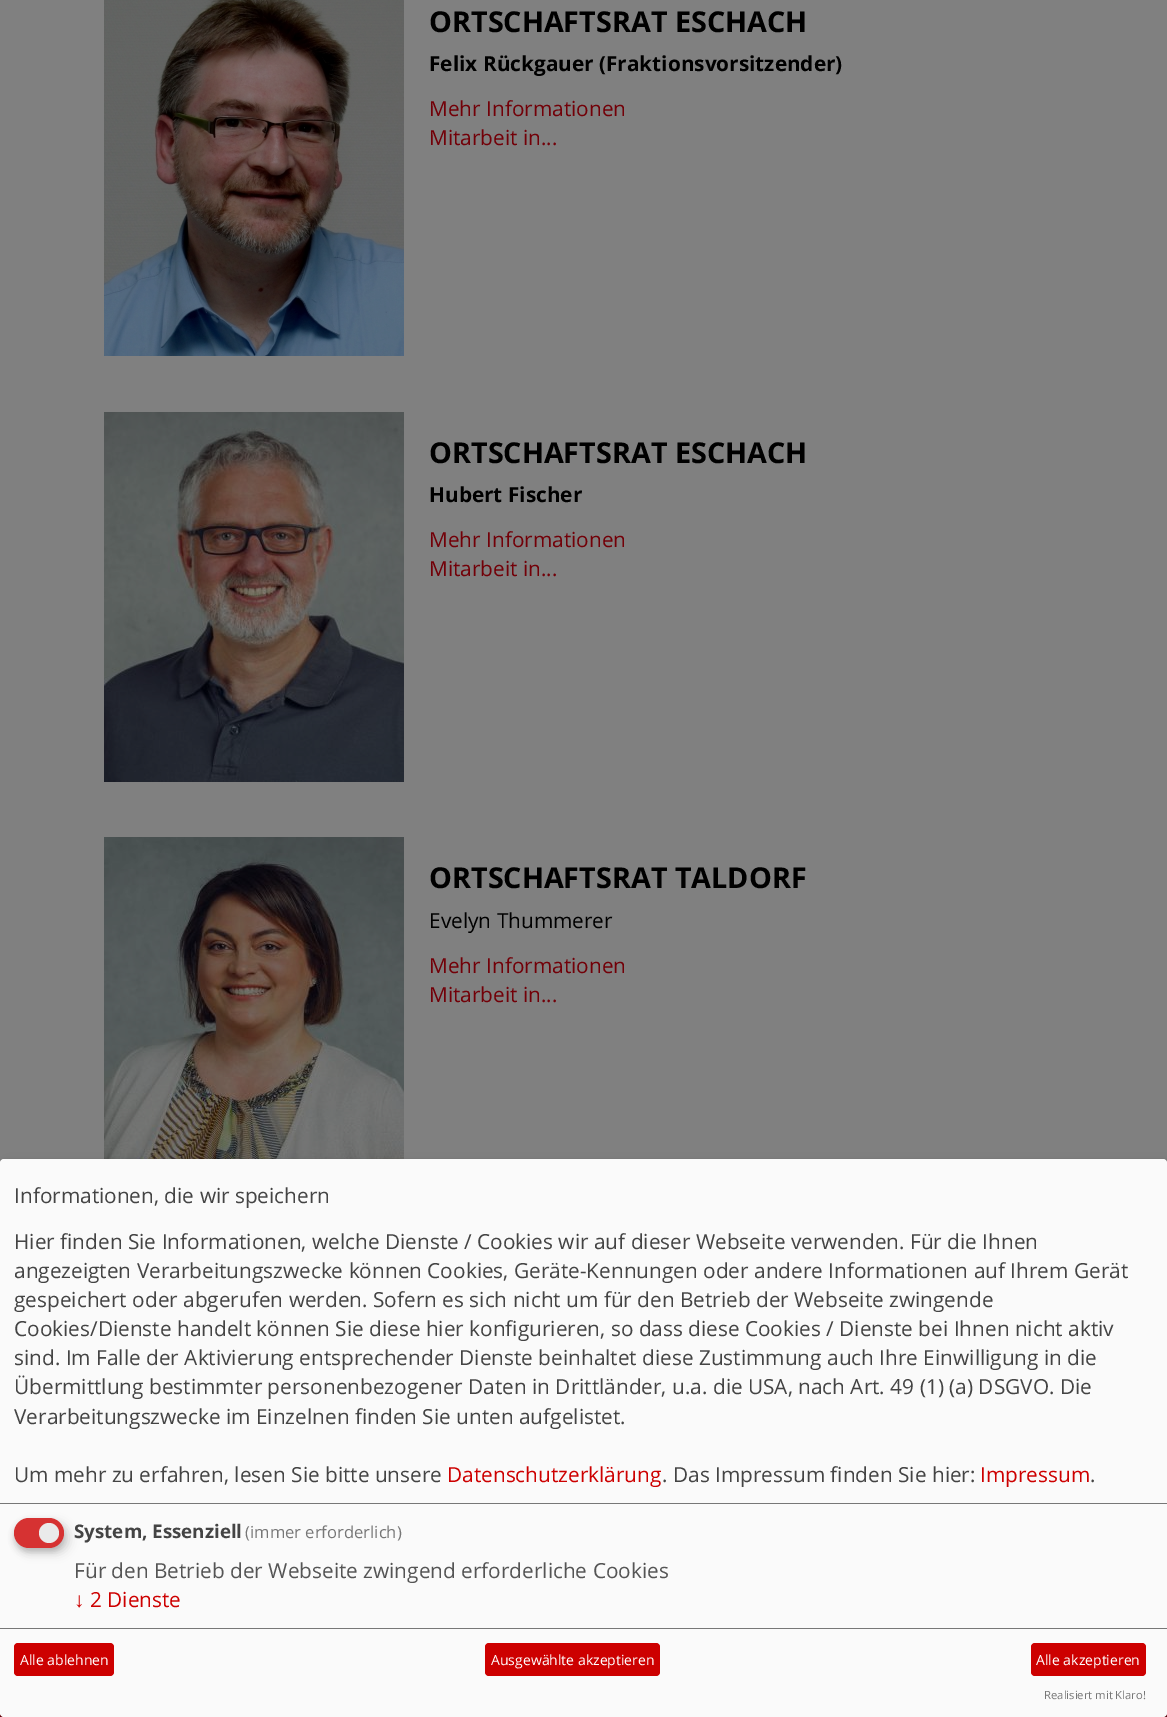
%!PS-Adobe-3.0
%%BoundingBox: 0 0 1167 1717
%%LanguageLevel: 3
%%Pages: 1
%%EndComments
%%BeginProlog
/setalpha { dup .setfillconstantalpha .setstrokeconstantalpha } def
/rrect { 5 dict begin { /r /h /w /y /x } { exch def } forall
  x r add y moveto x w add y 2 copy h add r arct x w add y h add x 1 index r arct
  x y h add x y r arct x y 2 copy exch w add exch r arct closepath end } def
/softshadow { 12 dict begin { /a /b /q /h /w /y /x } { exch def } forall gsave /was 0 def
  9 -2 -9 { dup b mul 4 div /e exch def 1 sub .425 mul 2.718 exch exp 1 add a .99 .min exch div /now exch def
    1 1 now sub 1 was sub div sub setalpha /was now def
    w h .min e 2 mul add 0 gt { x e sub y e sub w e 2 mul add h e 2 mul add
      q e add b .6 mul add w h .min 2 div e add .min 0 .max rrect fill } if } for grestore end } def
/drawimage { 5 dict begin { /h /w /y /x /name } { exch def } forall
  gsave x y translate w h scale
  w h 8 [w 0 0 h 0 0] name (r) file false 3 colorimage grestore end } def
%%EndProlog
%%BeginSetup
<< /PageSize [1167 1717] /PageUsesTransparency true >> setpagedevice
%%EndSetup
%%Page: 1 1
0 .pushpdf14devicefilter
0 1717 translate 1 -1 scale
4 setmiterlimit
0.502 setgray
0 0 1167 1717 rectfill
(images/1.raw) 104 0 300 356 drawimage
(images/2.raw) 104 412 300 370 drawimage
(images/3.raw) 104 837 300 322 drawimage
0.447 0 0.031 setrgbcolor
0 1713 1167 4 rectfill
0 setgray
5 1164 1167 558 4 5 0.19 softshadow
0 1163 1167 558 4 3 0.2 softshadow
0.98 setgray
0 1159 1167 558 4 rrect fill
0.467 setgray
0 1503 1167 1 rectfill
0 setgray
19 1523 50 30 15 5 0.15 softshadow
0.196 setgray
14 1522 50 30 15 3 0.2 softshadow
0.839 0.196 0.196 setrgbcolor
14 1518 50 30 15 rrect fill
0.918 setgray
newpath 49 1533 10 0 360 arc closepath fill
0.467 setgray
0 1628 1167 1 rectfill
0.804 0 0 setrgbcolor
14 1643 100 33 4 rrect fill
485 1643 175 33 4 rrect fill
1031 1643 115 33 4 rrect fill
/OpenSans-Bold [28.75 0 0 -28.75 0 0] selectfont
0 setgray
429 32 moveto (ORTSCHAFTSRAT ESCHACH) show
/OpenSans-Bold [20.8 0 0 -20.8 0 0] selectfont
429 71 moveto (Felix Rückgauer \(Fraktionsvorsitzender\)) show
/OpenSans-Regular [20.8 0 0 -20.8 0 0] selectfont
0.447 0 0.031 setrgbcolor
429 116 moveto (Mehr Informationen) show
429 145 moveto (Mitarbeit in...) show
/OpenSans-Bold [28.75 0 0 -28.75 0 0] selectfont
0 setgray
429 463 moveto (ORTSCHAFTSRAT ESCHACH) show
/OpenSans-Bold [20.8 0 0 -20.8 0 0] selectfont
429 502 moveto (Hubert Fischer) show
/OpenSans-Regular [20.8 0 0 -20.8 0 0] selectfont
0.447 0 0.031 setrgbcolor
429 547 moveto (Mehr Informationen) show
429 576 moveto (Mitarbeit in...) show
/OpenSans-Bold [28.75 0 0 -28.75 0 0] selectfont
0 setgray
429 888 moveto (ORTSCHAFTSRAT TALDORF) show
/OpenSans-Regular [20.8 0 0 -20.8 0 0] selectfont
429 928 moveto (Evelyn Thummerer) show
0.447 0 0.031 setrgbcolor
429 973 moveto (Mehr Informationen) show
429 1002 moveto (Mitarbeit in...) show
0.267 setgray
14 1203 moveto (Informationen, die wir speichern) show
14 1249 moveto (Hier finden Sie Informationen, welche Dienste / Cookies wir auf dieser Webseite verwenden. Für die Ihnen) show
14 1278 moveto (angezeigten Verarbeitungszwecke können Cookies, Geräte-Kennungen oder andere Informationen auf Ihrem Gerät) show
14 1307 moveto (gespeichert oder abgerufen werden. Sofern es sich nicht um für den Betrieb der Webseite zwingende) show
14 1336 moveto (Cookies/Dienste handelt können Sie diese hier konfigurieren, so dass diese Cookies / Dienste bei Ihnen nicht aktiv) show
14 1365 moveto (sind. Im Falle der Aktivierung entsprechender Dienste beinhaltet diese Zustimmung auch Ihre Einwilligung in die) show
14 1394 moveto (Übermittlung bestimmter personenbezogener Daten in Drittländer, u.a. die USA, nach Art. 49 \(1\) \(a\) DSGVO. Die) show
14 1424 moveto (Verarbeitungszwecke im Einzelnen finden Sie unten aufgelistet.) show
14 1482 moveto (Um mehr zu erfahren, lesen Sie bitte unsere) show
0.804 0 0 setrgbcolor
447 1482 moveto (Datenschutzerklärung) show
0.267 setgray
662 1482 moveto (. Das Impressum finden Sie hier:) show
0.804 0 0 setrgbcolor
980 1482 moveto (Impressum) show
0.267 setgray
1090 1482 moveto (.) show
/OpenSans-Bold [18.75 0 0 -18.75 0 0] selectfont
74 1538 moveto (System, Essenziell) show
/OpenSans-Regular [16.6 0 0 -16.6 0 0] selectfont
0.467 setgray
245 1538 moveto (\(immer erforderlich\)) show
/OpenSans-Regular [20.8 0 0 -20.8 0 0] selectfont
0.333 setgray
74 1578 moveto (Für den Betrieb der Webseite zwingend erforderliche Cookies) show
/LiberationSans-Regular [20.8 0 0 -20.8 0 0] selectfont
0.804 0 0 setrgbcolor
74 1607 moveto (↓) show
/OpenSans-Regular [20.8 0 0 -20.8 0 0] selectfont
90 1607 moveto (2 Dienste) show
/OpenSans-Regular [14 0 0 -14 0 0] selectfont
1 setgray
20 1665 moveto (Alle ablehnen) show
491 1665 moveto (Ausgewählte akzeptieren) show
1036 1665 moveto (Alle akzeptieren) show
/OpenSans-Regular [11.25 0 0 -11.25 0 0] selectfont
0.467 setgray
1044 1699 moveto (Realisiert mit Klaro!) show
.poppdf14devicefilter showpage
%%EOF
